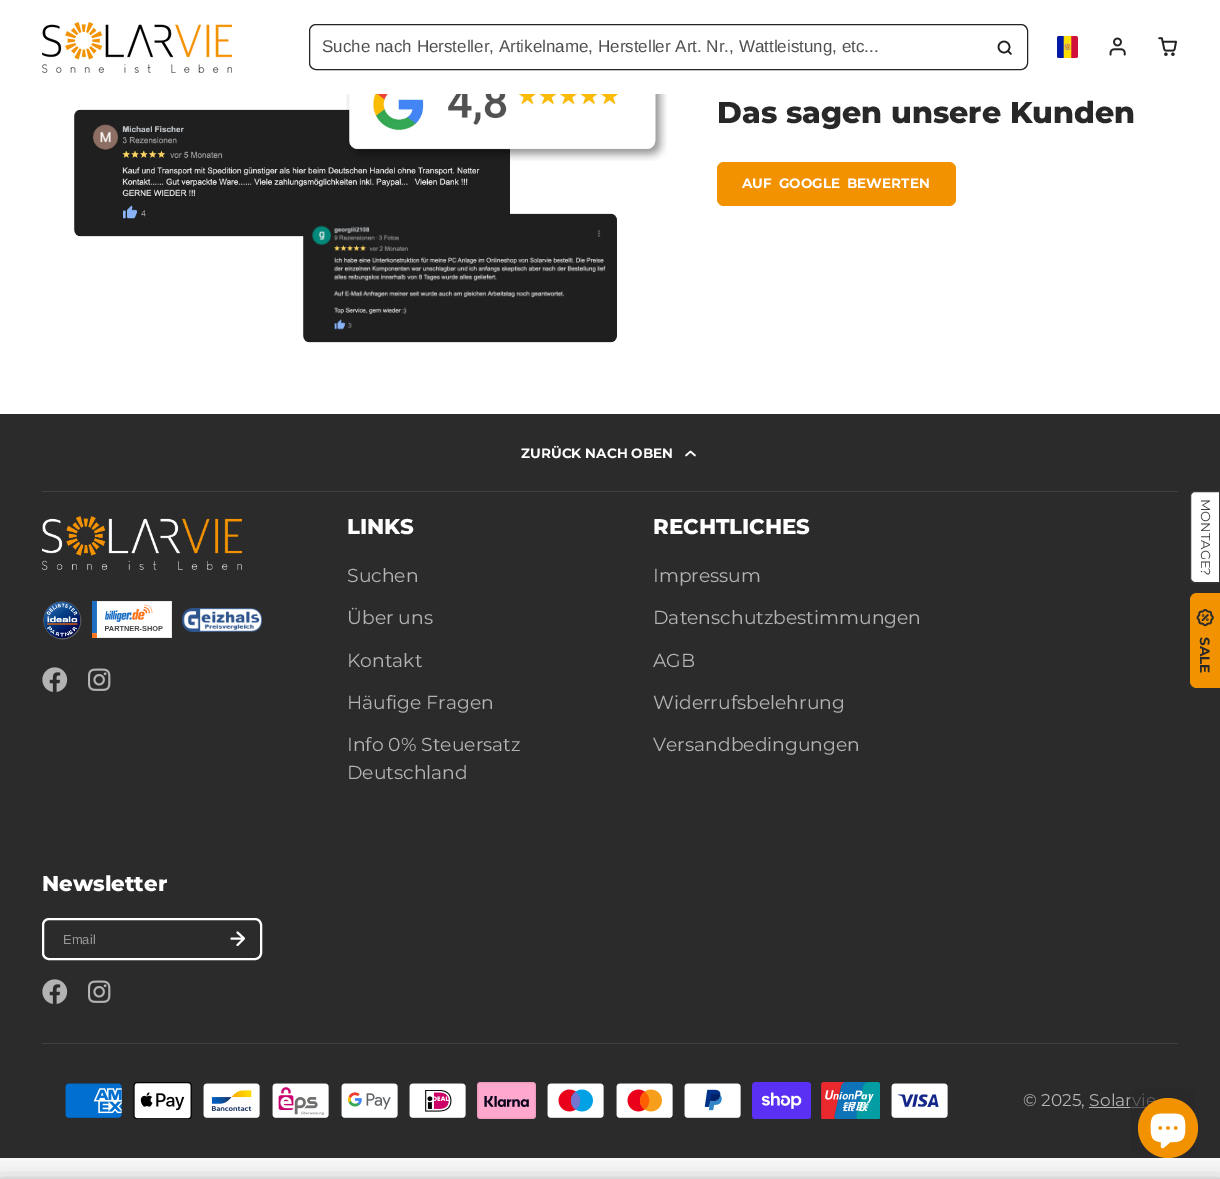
%!PS-Adobe-3.0
%%BoundingBox: 0 0 1220 1179
%%LanguageLevel: 3
%%Pages: 1
%%EndComments
%%BeginProlog
/setalpha { dup .setfillconstantalpha .setstrokeconstantalpha } def
/rrect { 5 dict begin { /r /h /w /y /x } { exch def } forall
  x r add y moveto x w add y 2 copy h add r arct x w add y h add x 1 index r arct
  x y h add x y r arct x y 2 copy exch w add exch r arct closepath end } def
/softshadow { 12 dict begin { /a /b /q /h /w /y /x } { exch def } forall gsave /was 0 def
  9 -2 -9 { dup b mul 4 div /e exch def 1 sub .425 mul 2.718 exch exp 1 add a .99 .min exch div /now exch def
    1 1 now sub 1 was sub div sub setalpha /was now def
    w h .min e 2 mul add 0 gt { x e sub y e sub w e 2 mul add h e 2 mul add
      q e add b .6 mul add w h .min 2 div e add .min 0 .max rrect fill } if } for grestore end } def
/drawimage { 5 dict begin { /h /w /y /x /name } { exch def } forall
  gsave x y translate w h scale
  w h 8 [w 0 0 h 0 0] name (r) file false 3 colorimage grestore end } def
%%EndProlog
%%BeginSetup
<< /PageSize [1220 1179] /PageUsesTransparency true >> setpagedevice
%%EndSetup
%%Page: 1 1
0 .pushpdf14devicefilter
0 1179 translate 1 -1 scale
4 setmiterlimit
0.969 setgray
0 0 1220 1179 rectfill
1 setgray
0 0 1220 414 rectfill
(images/1.raw) 42 22 190 51 drawimage
0.137 setgray
309.5 24.5 718 45 6.5 rrect stroke
1.6 setlinewidth
newpath 1004 47 5.5 0 360 arc closepath stroke
1 setlinecap
1 setlinejoin
newpath 1011 54 moveto 1008 51 lineto stroke
(images/2.raw) 1057 36 21 22 drawimage
(images/3.raw) 1109 37 17 19 drawimage
(images/4.raw) 1158 37 19 19 drawimage
(images/6.raw) 74 109 436 128 drawimage
(images/5.raw) 346 94 321 67 drawimage
(images/7.raw) 303 213 314 130 drawimage
0.953 0.573 0 setrgbcolor
717 162 239 44 7 rrect fill
0.169 setgray
0 414 1220 744 rectfill
0 setgray
0 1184 1220 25 0 10 0.4 softshadow
1 setgray
newpath 695 455.5 moveto 690.5 451.5 lineto 686 455.5 lineto stroke
0.251 setgray
42 491 1136 1 rectfill
(images/8.raw) 42 516 200 54 drawimage
(images/9.raw) 43 601 39 39 drawimage
(images/10.raw) 92 601 80 37 drawimage
(images/11.raw) 182 608 80 24 drawimage
(images/12.raw) 42 667 26 25 drawimage
(images/13.raw) 88 668 23 23 drawimage
1 setgray
2 setlinewidth
0 setlinecap
0 setlinejoin
43 919 218 40 6 rrect stroke
1 setlinecap
1 setlinejoin
newpath 231.5 938.5 moveto 243 938.5 lineto 237.5 932.5 moveto 244 938.5 lineto 237.5 945 lineto stroke
(images/12.raw) 42 979 26 25 drawimage
(images/13.raw) 88 980 23 23 drawimage
0.251 setgray
42 1043 1136 1 rectfill
(images/14.raw) 65 1083 57 35 drawimage
(images/15.raw) 133 1082 59 37 drawimage
(images/16.raw) 203 1083 57 35 drawimage
(images/17.raw) 272 1083 57 35 drawimage
(images/18.raw) 341 1083 57 35 drawimage
(images/19.raw) 409 1083 57 35 drawimage
(images/20.raw) 477 1082 59 37 drawimage
(images/21.raw) 547 1083 57 35 drawimage
(images/22.raw) 616 1083 57 35 drawimage
(images/23.raw) 684 1083 57 35 drawimage
(images/24.raw) 752 1082 59 37 drawimage
(images/25.raw) 821 1082 59 37 drawimage
(images/26.raw) 891 1083 57 35 drawimage
0.702 setgray
1089 1107 58 1 rectfill
1 setgray
newpath 1195 491.5 moveto 1219.5 491.5 lineto 1219.5 582.5 lineto 1195 582.5 lineto 1192.5 582.5 1190.5 580.5 1190.5 578 curveto 1190.5 496 lineto 1190.5 493.5 1192.5 491.5 1195 491.5 curveto closepath gsave fill grestore
0.22 setgray
1 setlinewidth
0 setlinecap
0 setlinejoin
stroke
0.953 0.573 0 setrgbcolor
newpath 1197 593 moveto 1220 593 lineto 1220 688 lineto 1197 688 lineto 1193 688 1190 685 1190 681 curveto 1190 600 lineto 1190 596 1193 593 1197 593 curveto closepath fill
(images/27.raw) 1196 609 18 18 drawimage
/LiberationSans-Regular [17 0 0 -17 0 0] selectfont
0.31 setgray
322 52 moveto (Suche nach Hersteller, Artikelname, Hersteller Art. Nr., Wattleistung, etc...) show
1 setgray
3 setlinewidth
newpath 312.5 42 moveto 315 39.5 320 39.5 322.5 42 curveto 312.5 42 moveto 315 39.5 320 39.5 322.5 42 curveto 312.5 42 moveto 315 39.5 320 39.5 322.5 42 curveto stroke
/Montserrat-ExtraBold [30 0 0 -30 0 0] selectfont
0.157 setgray
717 123 moveto (Das sagen unsere Kunden) show
/Montserrat-Bold [13.6 0 0 -13.6 0 0] selectfont
1 setgray
742 188 moveto 3 0 32 (AUF GOOGLE BEWERTEN) widthshow
521 458 moveto (ZURÜCK NACH OBEN) show
/Montserrat-ExtraBold [21.25 0 0 -21.25 0 0] selectfont
347 534 moveto (LINKS) show
/Montserrat-Regular [18.75 0 0 -18.75 0 0] selectfont
0.702 setgray
347 582 moveto (Suchen) show
347 624 moveto (Über uns) show
347 667 moveto (Kontakt) show
347 709 moveto (Häufige Fragen) show
347 751 moveto (Info 0% Steuersatz) show
347 779 moveto (Deutschland) show
/Montserrat-ExtraBold [21.25 0 0 -21.25 0 0] selectfont
1 setgray
653 534 moveto (RECHTLICHES) show
/Montserrat-Regular [18.75 0 0 -18.75 0 0] selectfont
0.702 setgray
653 582 moveto (Impressum) show
653 624 moveto (Datenschutzbestimmungen) show
653 667 moveto (AGB) show
653 709 moveto (Widerrufsbelehrung) show
653 751 moveto (Versandbedingungen) show
/Montserrat-ExtraBold [21.25 0 0 -21.25 0 0] selectfont
1 setgray
42 891 moveto (Newsletter) show
/LiberationSans-Regular [13 0 0 -13 0 0] selectfont
0.584 setgray
63 944 moveto (Email) show
/Montserrat-Regular [17 0 0 -17 0 0] selectfont
0.702 setgray
1023 1106 moveto (© 2025, Solarvie) show
/Montserrat-Regular [13 0 0 -13 0 0] selectfont
0.22 setgray
gsave 1201 499 translate 90 rotate 0 0 moveto (MONTAGE?) show grestore
/Montserrat-Bold [13.6 0 0 -13.6 0 0] selectfont
0.157 setgray
gsave 1200 637 translate 90 rotate 0 0 moveto (SALE) show grestore
0.64 setalpha
1130 1089 65 65 7 rrect fill
1 setalpha
0.953 0.573 0 setrgbcolor
newpath 1168 1128 30 0 360 arc closepath fill
(images/28.raw) 1150 1113 36 36 drawimage
.poppdf14devicefilter showpage
%%EOF
